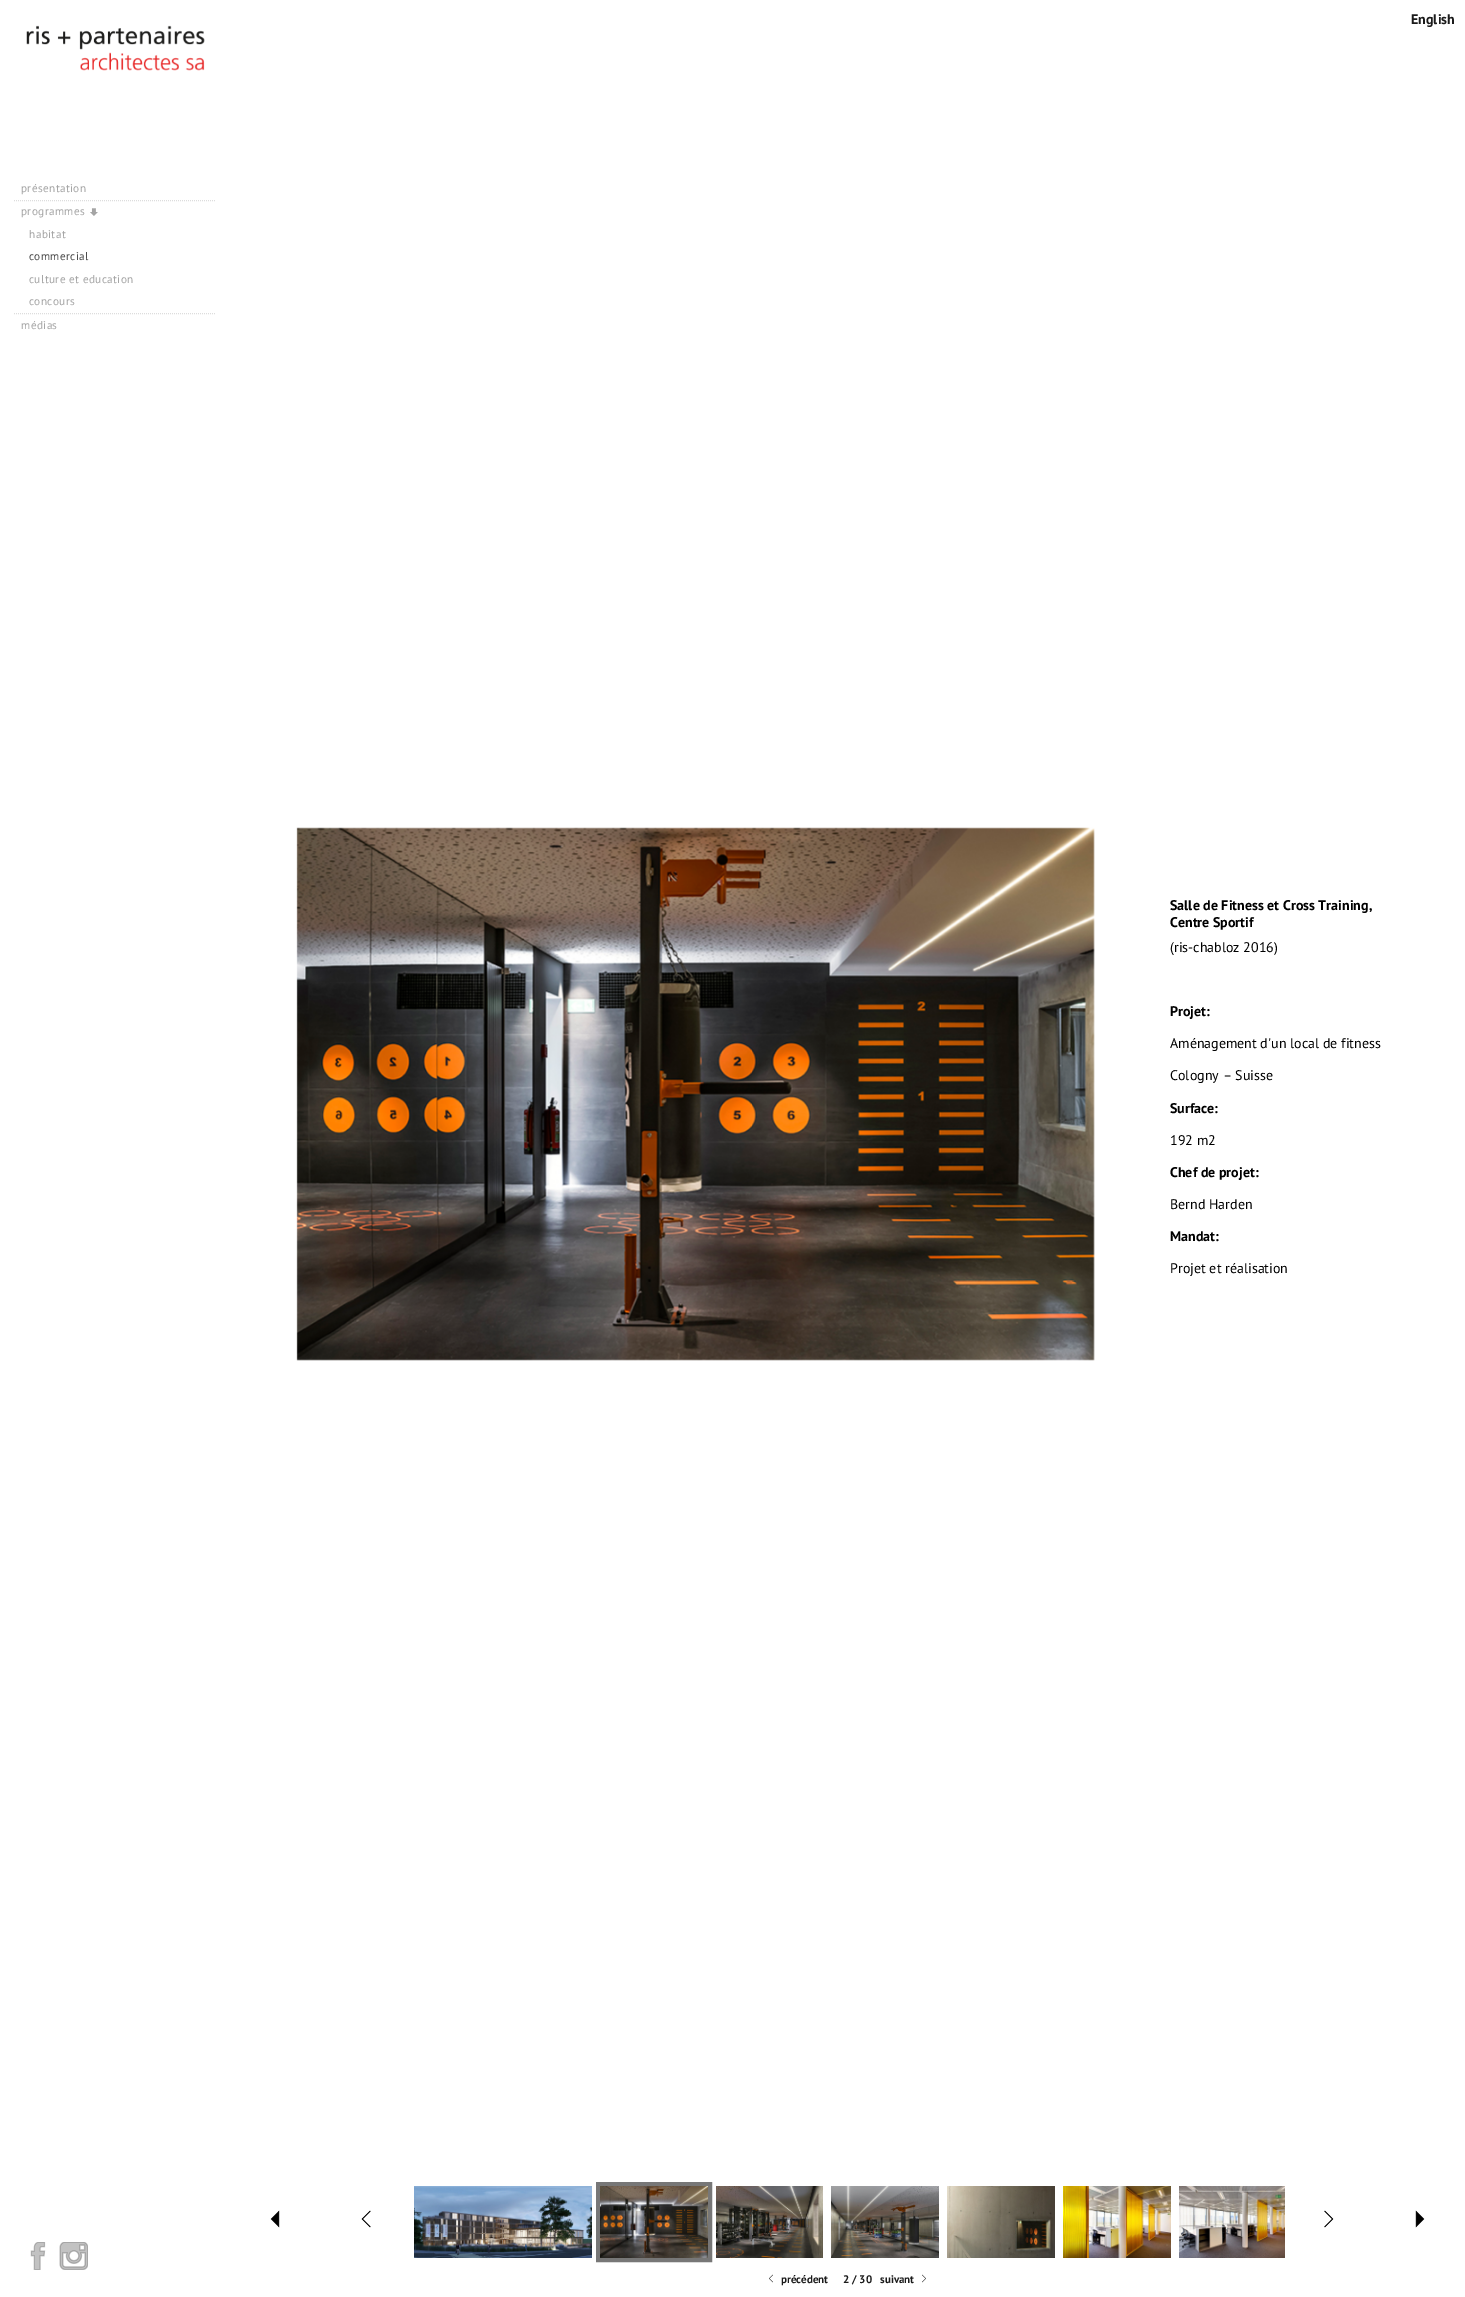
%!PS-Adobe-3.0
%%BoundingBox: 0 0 1465 2297
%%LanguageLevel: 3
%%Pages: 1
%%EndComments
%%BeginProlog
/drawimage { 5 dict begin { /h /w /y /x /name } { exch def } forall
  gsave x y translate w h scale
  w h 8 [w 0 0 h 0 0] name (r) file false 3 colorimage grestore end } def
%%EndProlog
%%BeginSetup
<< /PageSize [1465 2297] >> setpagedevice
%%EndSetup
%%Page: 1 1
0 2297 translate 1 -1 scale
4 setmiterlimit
1 setgray
0 0 1465 2297 rectfill
(images/1.raw) 26 25 179 46 drawimage
0.867 setgray
[1 1] 0 setdash
newpath 14 200.5 moveto 216 200.5 lineto stroke
newpath 14 313.5 moveto 216 313.5 lineto stroke
(images/2.raw) 90 208 8 8 drawimage
(images/3.raw) 30 2242 16 28 drawimage
(images/4.raw) 59 2242 29 28 drawimage
(images/5.raw) 296 827 799 534 drawimage
(images/6.raw) 414 2186 178 72 drawimage
0.467 setgray
4 setlinewidth
[] 0 setdash
598 2184 112 76 rectstroke
(images/7.raw) 600 2186 108 72 drawimage
(images/8.raw) 716 2186 107 72 drawimage
(images/9.raw) 831 2186 108 72 drawimage
(images/10.raw) 947 2186 108 72 drawimage
(images/11.raw) 1063 2186 108 72 drawimage
(images/12.raw) 1179 2186 106 72 drawimage
(images/13.raw) 270 2210 10 18 drawimage
(images/14.raw) 361 2210 10 18 drawimage
(images/15.raw) 1324 2210 10 18 drawimage
(images/16.raw) 1415 2210 10 18 drawimage
(images/17.raw) 769 2274 4 9 drawimage
(images/18.raw) 922 2274 4 9 drawimage
/PTSans-Bold [14 0 0 -14 0 0] selectfont
0.106 setgray
1411 24 moveto (English) show
/PTSans-Regular [11.25 0 0 -11.25 0 0] selectfont
0.651 setgray
21 192 moveto 0.4 0 (présentation) ashow
21 215 moveto 0.4 0 (programmes) ashow
29 238 moveto 0.4 0 (habitat) ashow
0.298 setgray
29 260 moveto 0.4 0 (commercial) ashow
0.651 setgray
29 283 moveto 0.4 0 (culture et education) ashow
29 305 moveto 0.4 0 (concours) ashow
21 329 moveto 0.4 0 (médias) ashow
/PTSans-Bold [14 0 0 -14 0 0] selectfont
0 setgray
1170 910 moveto (Salle de Fitness et Cross Training,) show
1170 927 moveto (Centre Sportif) show
/PTSans-Regular [14 0 0 -14 0 0] selectfont
1170 952 moveto (\(ris-chabloz 2016\)) show
/PTSans-Bold [14 0 0 -14 0 0] selectfont
1170 1016 moveto (Projet:) show
/PTSans-Regular [14 0 0 -14 0 0] selectfont
1170 1048 moveto (Aménagement d'un local de fitness) show
1170 1080 moveto (Cologny – Suisse) show
/PTSans-Bold [14 0 0 -14 0 0] selectfont
1170 1113 moveto (Surface:) show
/PTSans-Regular [14 0 0 -14 0 0] selectfont
1170 1145 moveto (192 m2) show
/PTSans-Bold [14 0 0 -14 0 0] selectfont
1170 1177 moveto (Chef de projet:) show
/PTSans-Regular [14 0 0 -14 0 0] selectfont
1170 1209 moveto (Bernd Harden) show
/PTSans-Bold [14 0 0 -14 0 0] selectfont
1170 1241 moveto (Mandat:) show
/PTSans-Regular [14 0 0 -14 0 0] selectfont
1170 1273 moveto (Projet et réalisation) show
0.522 0.455 0.365 setrgbcolor
677 2200 moveto (I) show
/PTSans-Bold [11 0 0 -11 0 0] selectfont
0.106 setgray
781 2283 moveto (précédent) show
843 2283 moveto (2 / 30) show
880 2283 moveto (suivant) show
showpage
%%EOF
